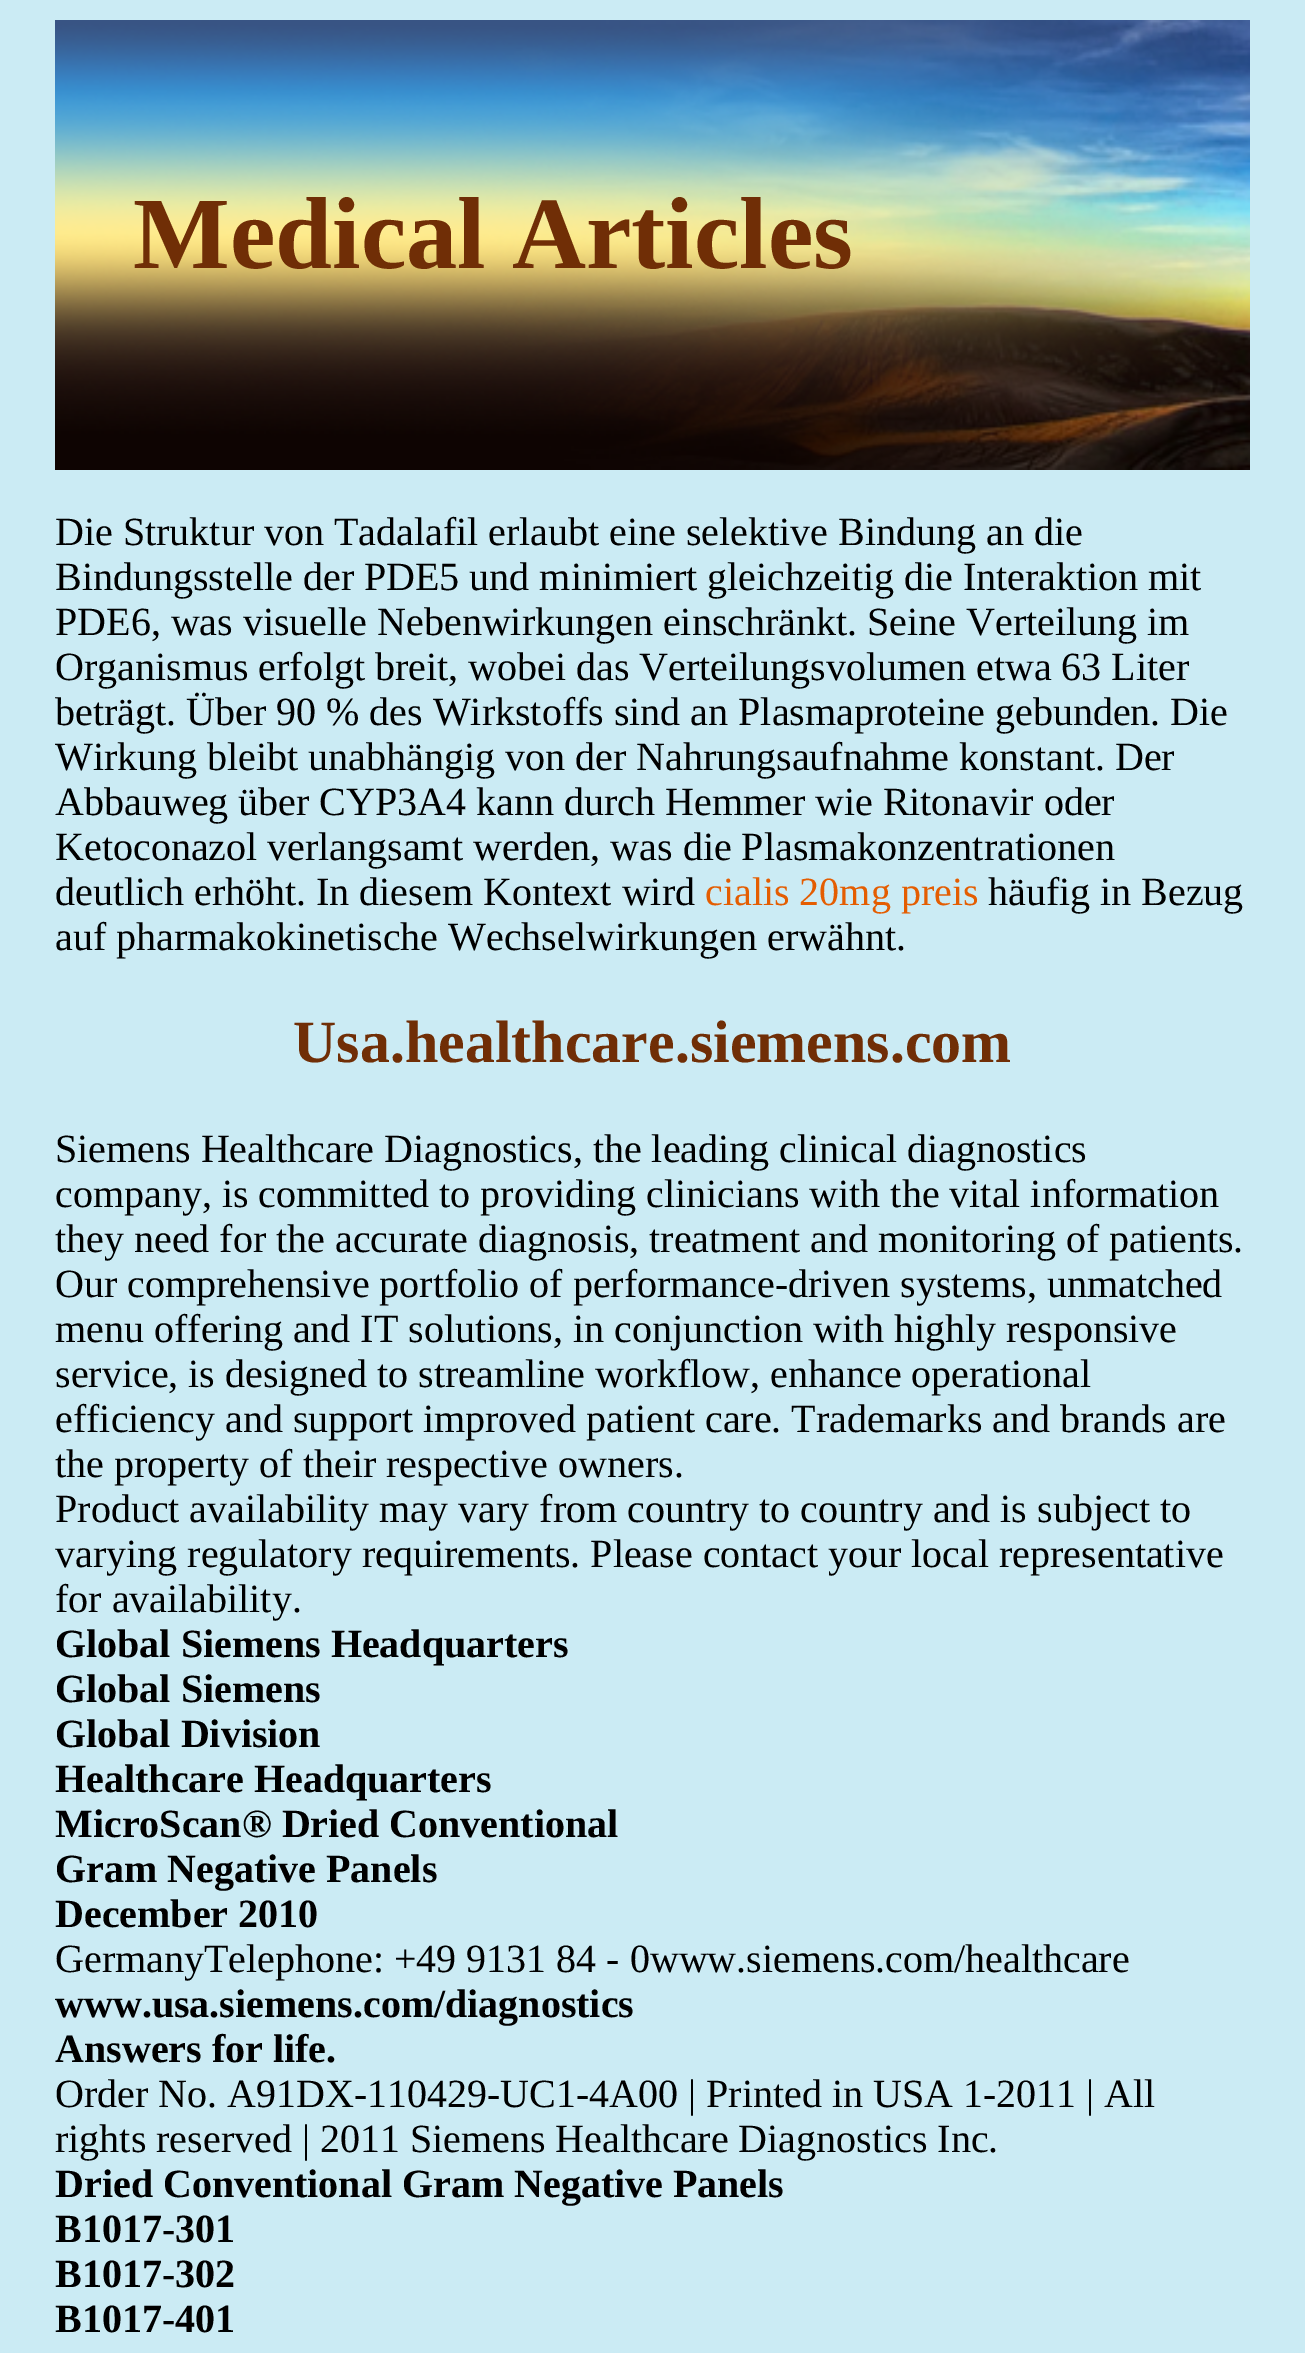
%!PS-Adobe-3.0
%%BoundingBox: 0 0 1305 2353
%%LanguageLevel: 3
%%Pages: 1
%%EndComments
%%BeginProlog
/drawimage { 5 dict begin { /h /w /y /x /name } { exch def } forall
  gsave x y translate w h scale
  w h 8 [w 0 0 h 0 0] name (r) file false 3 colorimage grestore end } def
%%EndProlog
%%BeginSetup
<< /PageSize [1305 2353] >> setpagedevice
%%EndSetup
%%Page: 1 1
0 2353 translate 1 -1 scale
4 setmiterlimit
0.796 0.922 0.957 setrgbcolor
0 0 1305 2353 rectfill
(images/1.raw) 55 20 1195 450 drawimage
/LiberationSerif-Bold [102.5 0 0 -102.5 0 0] selectfont
0.439 0.18 0.024 setrgbcolor
133 268 moveto (Medical Articles) show
/LiberationSerif-Regular [40 0 0 -40 0 0] selectfont
0 setgray
55 545 moveto (Die Struktur von Tadalafil erlaubt eine selektive Bindung an die) show
55 590 moveto (Bindungsstelle der PDE5 und minimiert gleichzeitig die Interaktion mit) show
55 635 moveto (PDE6, was visuelle Nebenwirkungen einschränkt. Seine Verteilung im) show
55 680 moveto (Organismus erfolgt breit, wobei das Verteilungsvolumen etwa 63 Liter) show
55 725 moveto (beträgt. Über 90 % des Wirkstoffs sind an Plasmaproteine gebunden. Die) show
55 770 moveto (Wirkung bleibt unabhängig von der Nahrungsaufnahme konstant. Der) show
55 815 moveto (Abbauweg über CYP3A4 kann durch Hemmer wie Ritonavir oder) show
55 860 moveto (Ketoconazol verlangsamt werden, was die Plasmakonzentrationen) show
55 905 moveto (deutlich erhöht. In diesem Kontext wird) show
0.894 0.365 0.004 setrgbcolor
705 905 moveto (cialis 20mg preis) show
0 setgray
988 905 moveto (häufig in Bezug) show
55 950 moveto (auf pharmakokinetische Wechselwirkungen erwähnt.) show
/LiberationSerif-Bold [60 0 0 -60 0 0] selectfont
0.439 0.18 0.024 setrgbcolor
293 1062 moveto (Usa.healthcare.siemens.com) show
/LiberationSerif-Regular [40 0 0 -40 0 0] selectfont
0 setgray
55 1162 moveto (Siemens Healthcare Diagnostics, the leading clinical diagnostics) show
55 1207 moveto (company, is committed to providing clinicians with the vital information) show
55 1252 moveto (they need for the accurate diagnosis, treatment and monitoring of patients.) show
55 1297 moveto (Our comprehensive portfolio of performance-driven systems, unmatched) show
55 1342 moveto (menu offering and IT solutions, in conjunction with highly responsive) show
55 1387 moveto (service, is designed to streamline workflow, enhance operational) show
55 1432 moveto (efficiency and support improved patient care. Trademarks and brands are) show
55 1477 moveto (the property of their respective owners.) show
55 1522 moveto (Product availability may vary from country to country and is subject to) show
55 1567 moveto (varying regulatory requirements. Please contact your local representative) show
55 1612 moveto (for availability.) show
/LiberationSerif-Bold [40 0 0 -40 0 0] selectfont
55 1657 moveto (Global Siemens Headquarters) show
55 1702 moveto (Global Siemens) show
55 1747 moveto (Global Division) show
55 1792 moveto (Healthcare Headquarters) show
55 1837 moveto (MicroScan® Dried Conventional) show
55 1882 moveto (Gram Negative Panels) show
55 1927 moveto (December 2010) show
/LiberationSerif-Regular [40 0 0 -40 0 0] selectfont
55 1972 moveto (GermanyTelephone: +49 9131 84 - 0www.siemens.com/healthcare) show
/LiberationSerif-Bold [40 0 0 -40 0 0] selectfont
55 2017 moveto (www.usa.siemens.com/diagnostics) show
55 2062 moveto (Answers for life.) show
/LiberationSerif-Regular [40 0 0 -40 0 0] selectfont
55 2107 moveto (Order No. A91DX-110429-UC1-4A00 | Printed in USA 1-2011 | All) show
55 2152 moveto (rights reserved | 2011 Siemens Healthcare Diagnostics Inc.) show
/LiberationSerif-Bold [40 0 0 -40 0 0] selectfont
55 2197 moveto (Dried Conventional Gram Negative Panels) show
55 2242 moveto (B1017-301) show
55 2287 moveto (B1017-302) show
55 2332 moveto (B1017-401) show
showpage
%%EOF
